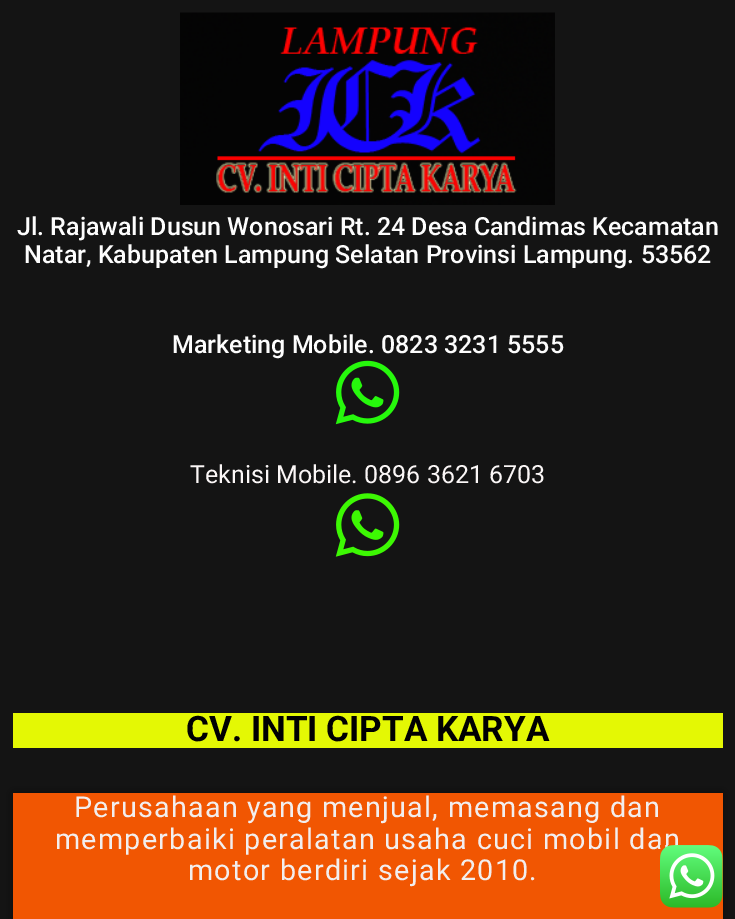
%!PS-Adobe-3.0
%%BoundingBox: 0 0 735 919
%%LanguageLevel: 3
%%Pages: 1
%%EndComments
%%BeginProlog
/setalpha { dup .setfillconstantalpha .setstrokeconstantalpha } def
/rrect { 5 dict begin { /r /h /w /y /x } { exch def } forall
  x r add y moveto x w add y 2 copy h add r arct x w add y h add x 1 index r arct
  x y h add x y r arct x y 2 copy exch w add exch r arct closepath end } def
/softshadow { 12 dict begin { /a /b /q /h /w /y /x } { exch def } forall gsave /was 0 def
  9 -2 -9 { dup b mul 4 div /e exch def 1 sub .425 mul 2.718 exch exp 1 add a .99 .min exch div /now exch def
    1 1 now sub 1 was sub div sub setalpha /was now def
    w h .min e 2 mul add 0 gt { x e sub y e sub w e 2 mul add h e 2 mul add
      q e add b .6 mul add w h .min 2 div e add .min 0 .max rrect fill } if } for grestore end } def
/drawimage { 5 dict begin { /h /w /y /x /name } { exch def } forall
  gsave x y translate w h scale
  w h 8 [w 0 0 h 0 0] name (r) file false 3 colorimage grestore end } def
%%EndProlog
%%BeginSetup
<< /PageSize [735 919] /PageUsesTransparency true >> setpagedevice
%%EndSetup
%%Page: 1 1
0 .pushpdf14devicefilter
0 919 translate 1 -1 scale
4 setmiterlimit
0.078 setgray
0 0 735 919 rectfill
(images/1.raw) 180 12 375 193 drawimage
(images/2.raw) 335 360 65 65 drawimage
(images/3.raw) 335 493 65 64 drawimage
0.894 0.973 0.016 setrgbcolor
13 713 710 35 rectfill
0 setgray
13 793 710 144 0 6 0.5 softshadow
0.945 0.337 0.008 setrgbcolor
13 793 710 126 rectfill
/Roboto-Medium [25 0 0 -25 0 0] selectfont
0.992 setgray
17 235 moveto (Jl. Rajawali Dusun Wonosari Rt. 24 Desa Candimas Kecamatan) show
24 263 moveto (Natar, Kabupaten Lampung Selatan Provinsi Lampung. 53562) show
172 353 moveto (Marketing Mobile. 0823 3231 5555) show
/Roboto-Regular [25 0 0 -25 0 0] selectfont
0.984 0.969 0.969 setrgbcolor
190 483 moveto (Teknisi Mobile. 0896 3621 6703) show
/Roboto-Bold [35 0 0 -35 0 0] selectfont
0 0 0.008 setrgbcolor
186 741 moveto (CV. INTI CIPTA KARYA) show
/Roboto-Regular [28.75 0 0 -28.75 0 0] selectfont
0.949 0.933 0.933 setrgbcolor
74 817 moveto 1.25 0 (Perusahaan yang menjual, memasang dan) ashow
55 849 moveto 1.25 0 (memperbaiki peralatan usaha cuci mobil dan) ashow
188 880 moveto 1.25 0 (motor berdiri sejak 2010.) ashow
(images/4.raw) 660 845 63 63 drawimage
.poppdf14devicefilter showpage
%%EOF
